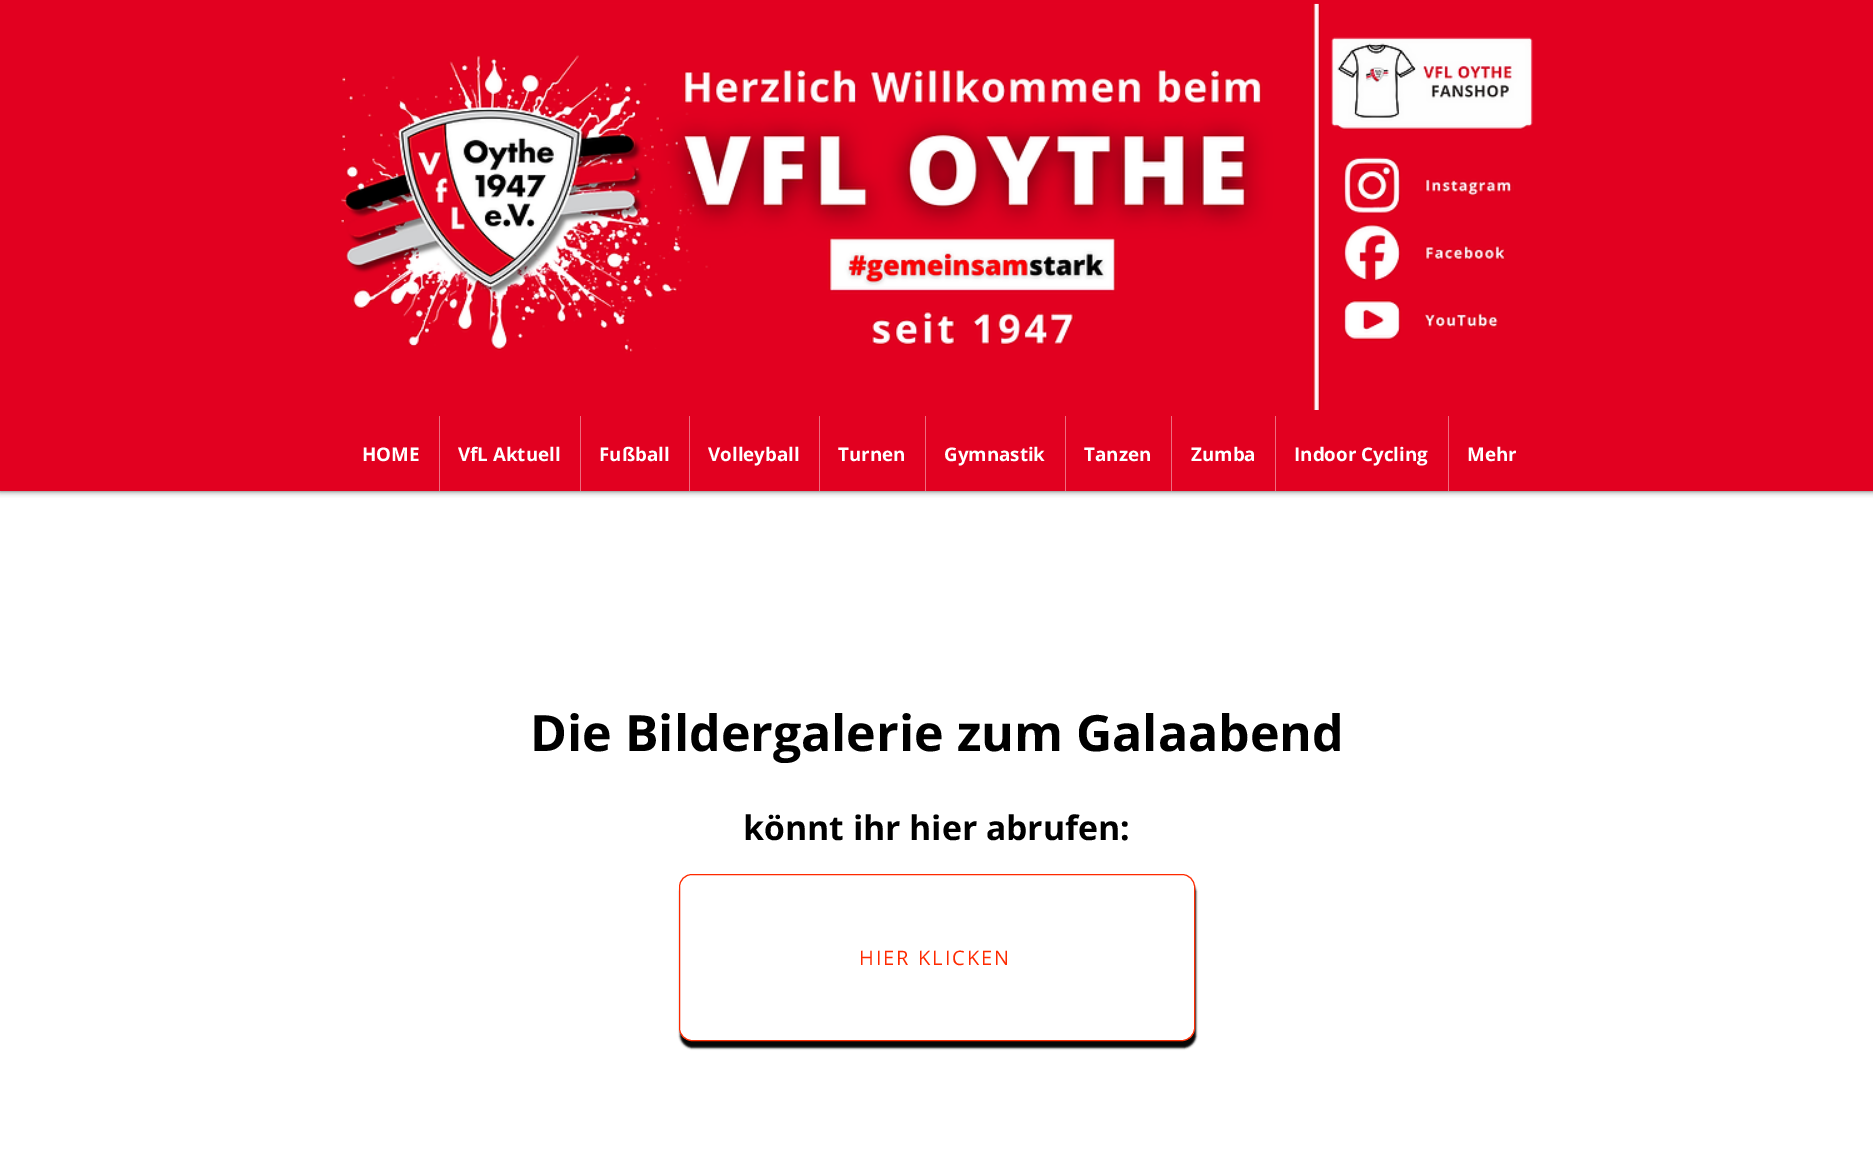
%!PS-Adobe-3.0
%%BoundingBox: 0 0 1873 1165
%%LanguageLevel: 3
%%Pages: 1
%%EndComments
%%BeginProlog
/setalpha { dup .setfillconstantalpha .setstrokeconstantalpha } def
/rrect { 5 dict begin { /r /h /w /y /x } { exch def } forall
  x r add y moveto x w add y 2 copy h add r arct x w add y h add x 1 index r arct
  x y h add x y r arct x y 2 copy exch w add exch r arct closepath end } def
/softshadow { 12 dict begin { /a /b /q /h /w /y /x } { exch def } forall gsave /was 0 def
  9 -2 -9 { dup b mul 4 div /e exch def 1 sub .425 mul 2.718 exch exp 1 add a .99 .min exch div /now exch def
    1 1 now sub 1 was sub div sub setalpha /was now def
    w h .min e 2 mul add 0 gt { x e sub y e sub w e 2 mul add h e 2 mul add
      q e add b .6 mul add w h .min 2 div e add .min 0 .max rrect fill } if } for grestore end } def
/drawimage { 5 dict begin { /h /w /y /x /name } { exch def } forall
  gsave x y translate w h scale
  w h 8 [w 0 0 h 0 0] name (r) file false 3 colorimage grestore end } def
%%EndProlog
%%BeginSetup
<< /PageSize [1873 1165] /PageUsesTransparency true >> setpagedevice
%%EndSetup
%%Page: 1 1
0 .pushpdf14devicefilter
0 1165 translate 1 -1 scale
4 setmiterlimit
1 setgray
0 0 1873 1165 rectfill
0 setgray
0 0 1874 491 0 3 0.7 softshadow
0.886 0 0.125 setrgbcolor
0 0 1873 491 rectfill
(images/1.raw) 340 3 1191 407 drawimage
(images/2.raw) 1331 37 202 90 drawimage
0.933 0.42 0.494 setrgbcolor
439 416 1 75 rectfill
580 416 1 75 rectfill
689 416 1 75 rectfill
819 416 1 75 rectfill
925 416 1 75 rectfill
1065 416 1 75 rectfill
1171 416 1 75 rectfill
1275 416 1 75 rectfill
1448 416 1 75 rectfill
0 setgray
680 880 516 168 13 1 1 softshadow
1 setgray
679.5 874.5 515 166 12.5 rrect gsave fill grestore
0.996 0.165 0 setrgbcolor
stroke
/OpenSans-Bold [18.75 0 0 -18.75 0 0] selectfont
1 setgray
362 461 moveto (HOME) show
458 461 moveto (VfL Aktuell) show
599 461 moveto (Fußball) show
708 461 moveto (Volleyball) show
838 461 moveto (Turnen) show
944 461 moveto (Gymnastik) show
1084 461 moveto (Tanzen) show
1191 461 moveto (Zumba) show
1294 461 moveto (Indoor Cycling) show
1467 461 moveto (Mehr) show
/OpenSans-Bold [50 0 0 -50 0 0] selectfont
0 setgray
530 751 moveto (Die Bildergalerie zum Galaabend) show
/OpenSans-Bold [33.75 0 0 -33.75 0 0] selectfont
743 840 moveto (könnt ihr hier abrufen:) show
/OpenSans-Regular [20 0 0 -20 0 0] selectfont
0.996 0.165 0 setrgbcolor
859 965 moveto 2 0 (HIER KLICKEN) ashow
.poppdf14devicefilter showpage
%%EOF
